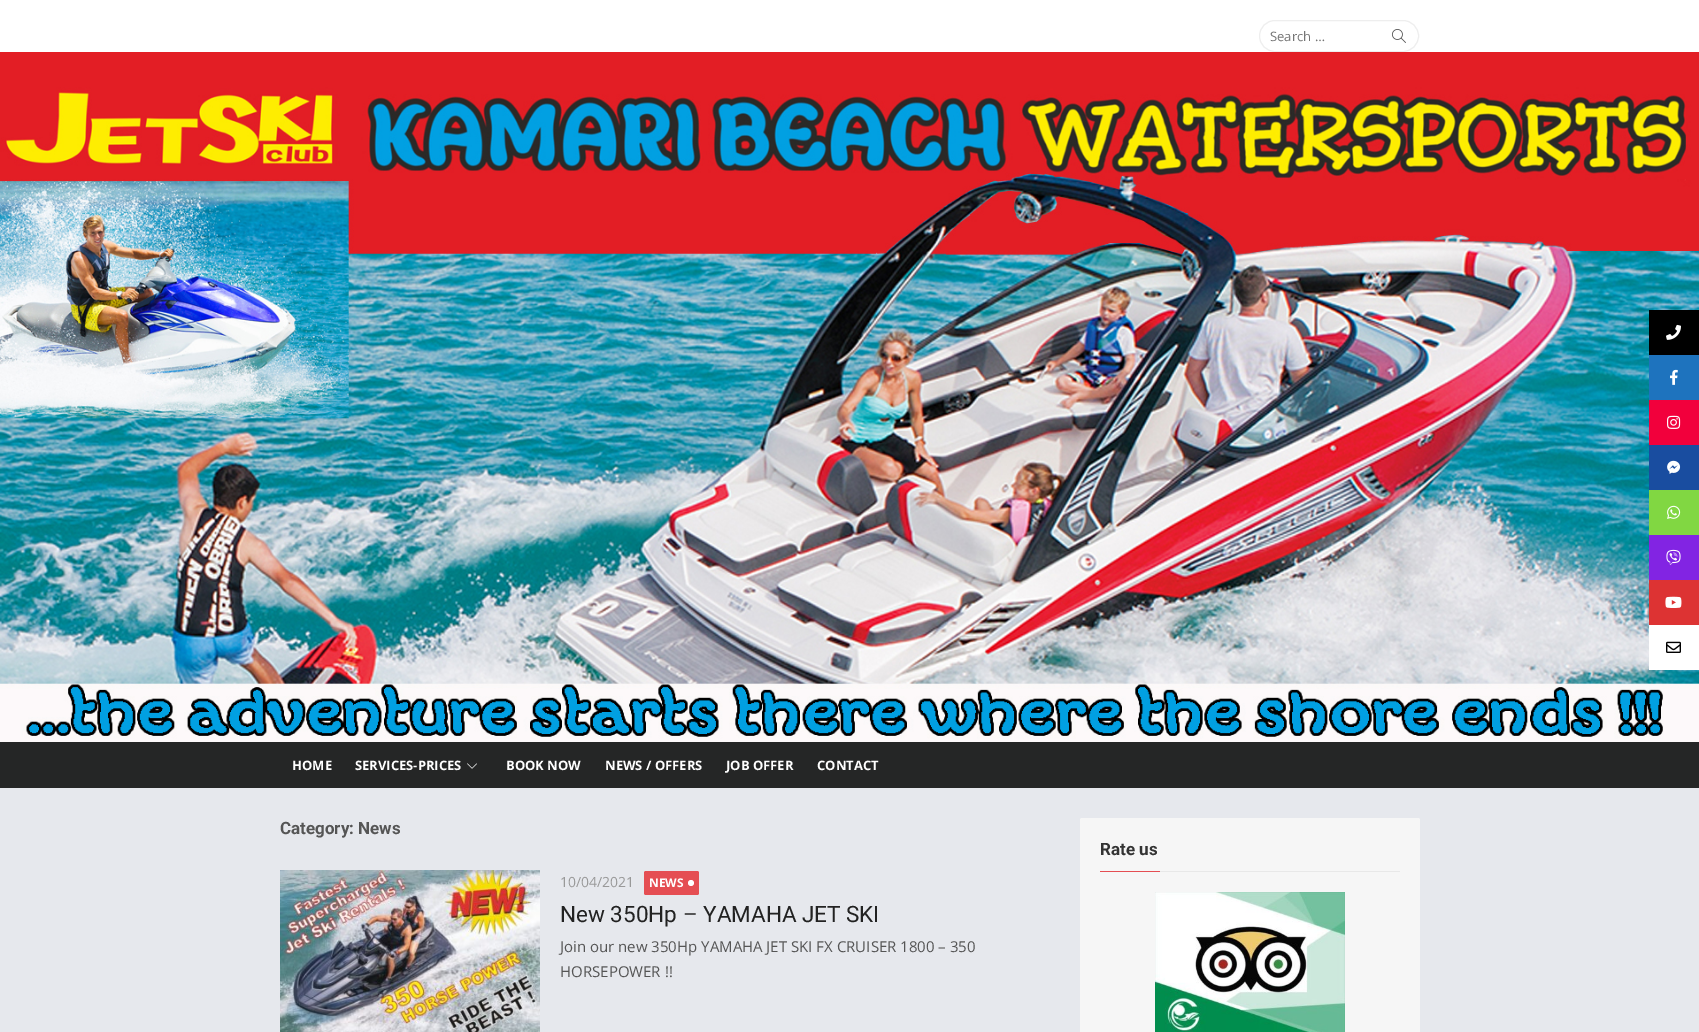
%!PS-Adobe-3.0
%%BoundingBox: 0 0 1699 1032
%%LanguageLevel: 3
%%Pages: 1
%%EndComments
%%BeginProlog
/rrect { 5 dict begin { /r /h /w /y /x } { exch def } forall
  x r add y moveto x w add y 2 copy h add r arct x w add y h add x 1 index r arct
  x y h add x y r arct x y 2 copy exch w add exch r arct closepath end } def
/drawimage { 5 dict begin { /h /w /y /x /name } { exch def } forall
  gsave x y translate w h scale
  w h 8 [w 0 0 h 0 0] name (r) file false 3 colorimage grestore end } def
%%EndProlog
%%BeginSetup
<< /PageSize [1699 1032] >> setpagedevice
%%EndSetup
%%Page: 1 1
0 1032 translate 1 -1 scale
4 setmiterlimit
0.902 0.91 0.929 setrgbcolor
0 0 1699 1032 rectfill
1 setgray
0 0 1699 52 rectfill
0.933 setgray
1259.5 20.5 159 31 15.5 rrect stroke
(images/1.raw) 1391 29 15 14 drawimage
(images/2.raw) 0 52 1699 690 drawimage
0.145 0.149 0.149 setrgbcolor
0 742 1699 46 rectfill
(images/3.raw) 467 763 10 6 drawimage
(images/4.raw) 280 870 260 162 drawimage
0.898 0.306 0.325 setrgbcolor
644 871 55 24 2 rrect fill
1 setgray
newpath 691 883 3 0 360 arc closepath fill
0.965 setgray
1080 818 340 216 2 rrect fill
0.91 setgray
1160 871 240 1 rectfill
0.898 0.306 0.325 setrgbcolor
1100 871 60 1 rectfill
(images/5.raw) 1155 892 190 140 drawimage
0 setgray
1649 310 50 45 rectfill
(images/6.raw) 1666 324 15 16 drawimage
0.118 0.451 0.745 setrgbcolor
1649 355 50 45 rectfill
(images/7.raw) 1670 369 8 16 drawimage
0.949 0 0.235 setrgbcolor
1649 400 50 45 rectfill
(images/8.raw) 1667 415 14 14 drawimage
0.098 0.302 0.627 setrgbcolor
1649 445 50 45 rectfill
(images/9.raw) 1667 460 14 14 drawimage
0.506 0.843 0.259 setrgbcolor
1649 490 50 45 rectfill
(images/10.raw) 1667 505 14 14 drawimage
0.51 0.141 0.89 setrgbcolor
1649 535 50 45 rectfill
(images/11.raw) 1666 549 15 16 drawimage
0.867 0.2 0.2 setrgbcolor
1649 580 50 45 rectfill
(images/12.raw) 1665 596 17 12 drawimage
1 setgray
1649 625 50 45 rectfill
(images/13.raw) 1666 641 15 12 drawimage
/OpenSans-Regular [13 0 0 -13 0 0] selectfont
0.459 setgray
1270 41 moveto (Search …) show
/OpenSans-Bold [13 0 0 -13 0 0] selectfont
1 setgray
292 770 moveto (HOME) show
355 770 moveto (SERVICES-PRICES) show
506 770 moveto (BOOK NOW) show
605 770 moveto (NEWS / OFFERS) show
726 770 moveto (JOB OFFER) show
817 770 moveto (CONTACT) show
/Roboto-Bold [17 0 0 -17 0 0] selectfont
0.333 setgray
280 834 moveto (Category: News) show
/OpenSans-Regular [14 0 0 -14 0 0] selectfont
0.6 setgray
560 887 moveto (10/04/2021) show
/OpenSans-Bold [12 0 0 -12 0 0] selectfont
1 setgray
649 887 moveto (NEWS) show
/Roboto-Regular [22.5 0 0 -22.5 0 0] selectfont
0.133 setgray
560 922 moveto (New 350Hp – YAMAHA JET SKI) show
/OpenSans-Regular [15 0 0 -15 0 0] selectfont
0.333 setgray
560 952 moveto (Join our new 350Hp YAMAHA JET SKI FX CRUISER 1800 – 350) show
560 977 moveto (HORSEPOWER !!) show
/Roboto-Bold [17 0 0 -17 0 0] selectfont
0.2 setgray
1100 855 moveto (Rate us) show
showpage
%%EOF
